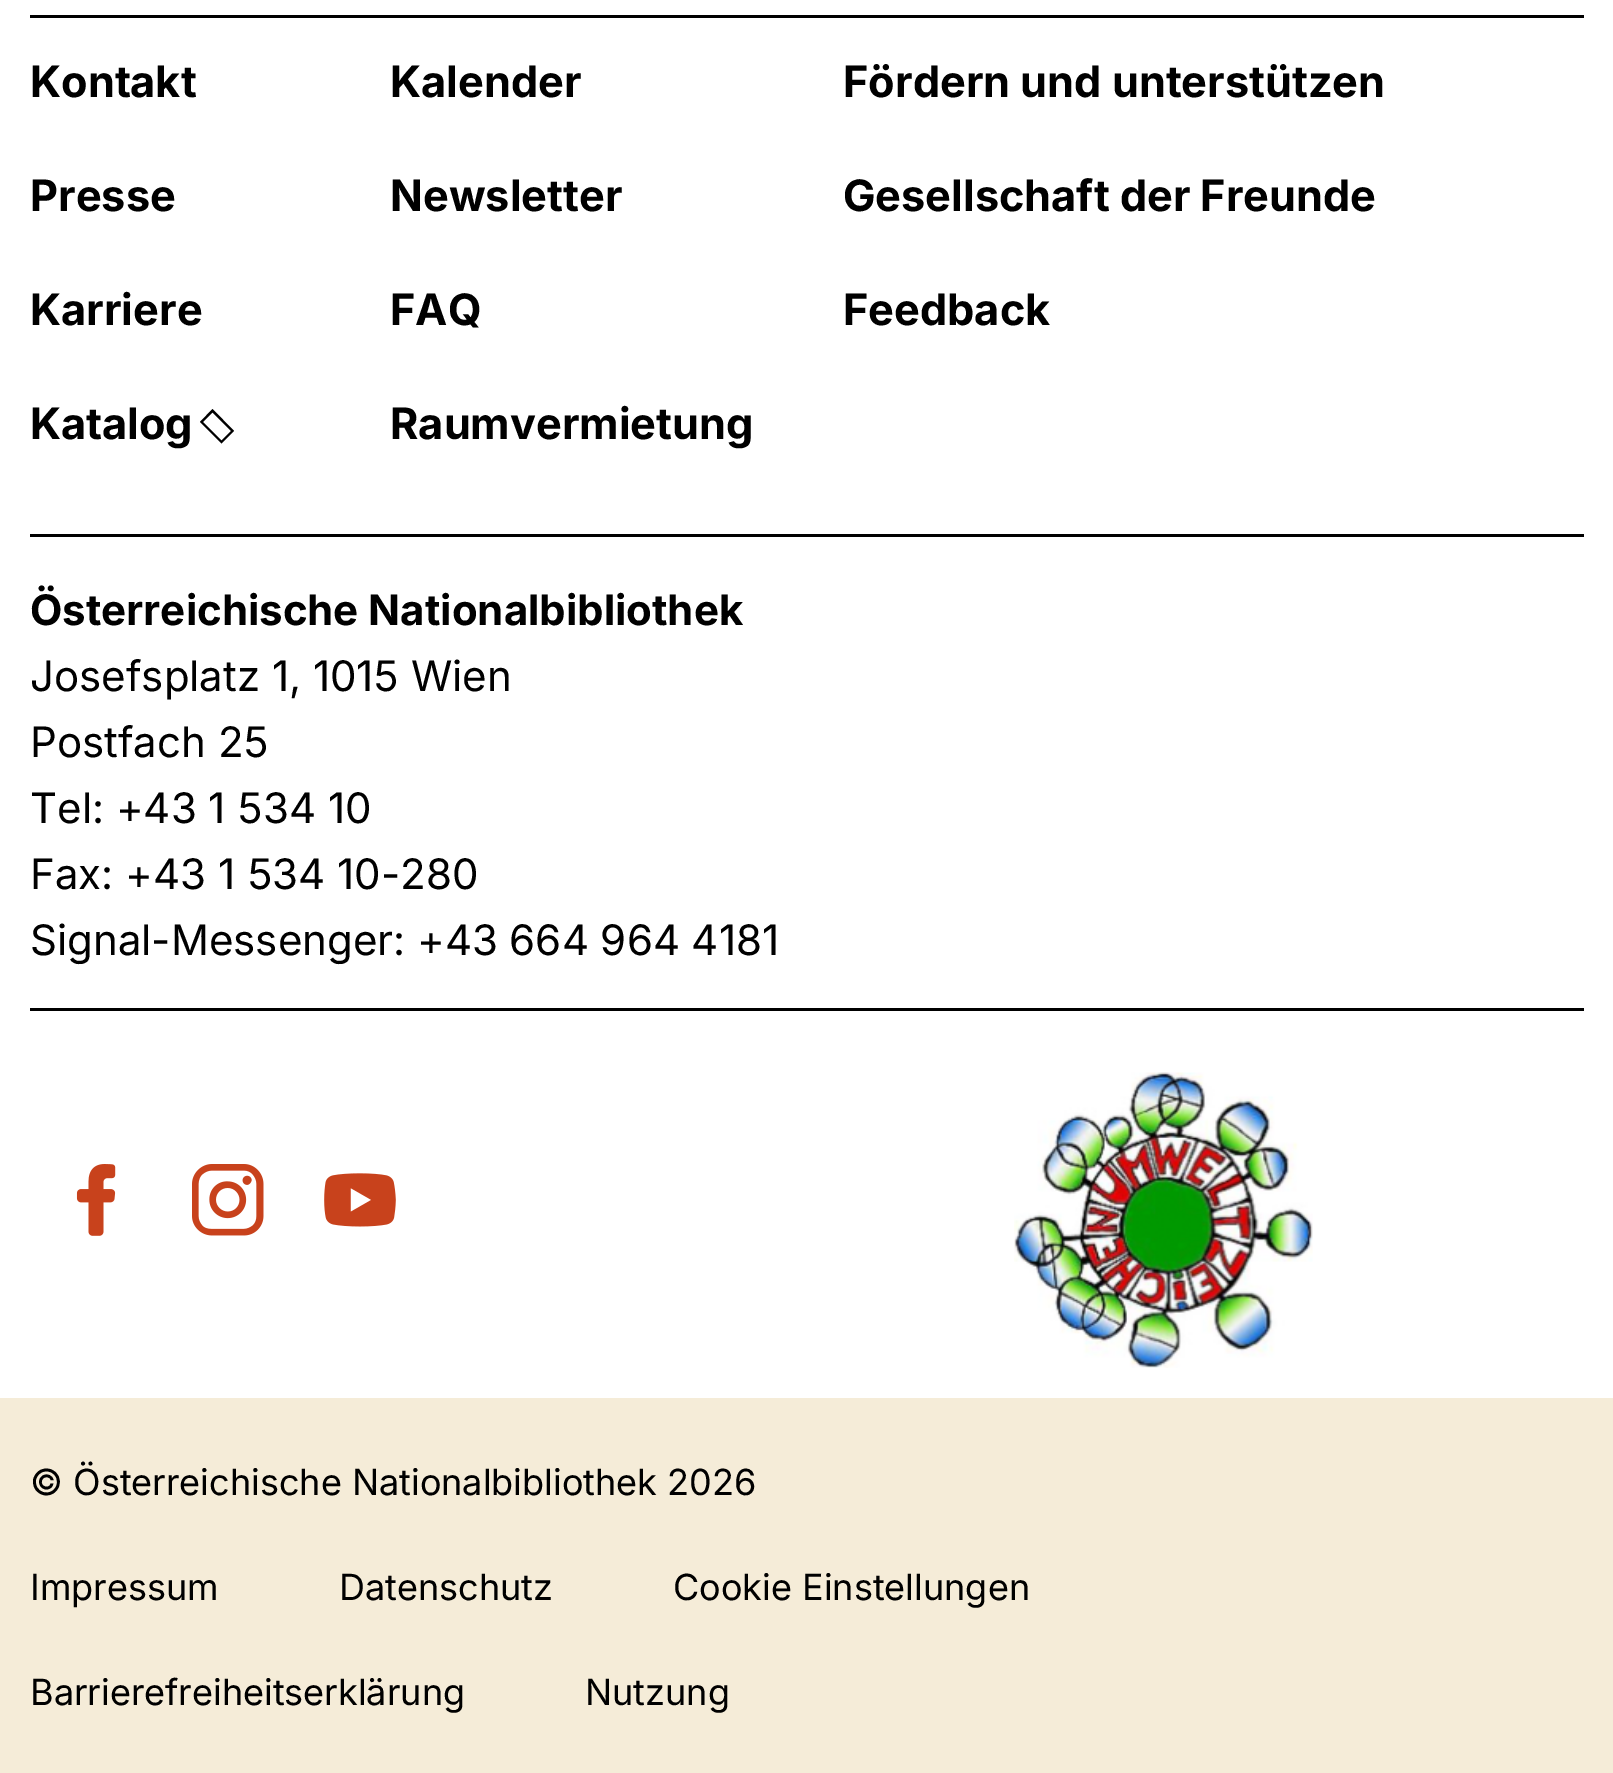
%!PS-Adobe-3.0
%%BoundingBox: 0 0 1613 1773
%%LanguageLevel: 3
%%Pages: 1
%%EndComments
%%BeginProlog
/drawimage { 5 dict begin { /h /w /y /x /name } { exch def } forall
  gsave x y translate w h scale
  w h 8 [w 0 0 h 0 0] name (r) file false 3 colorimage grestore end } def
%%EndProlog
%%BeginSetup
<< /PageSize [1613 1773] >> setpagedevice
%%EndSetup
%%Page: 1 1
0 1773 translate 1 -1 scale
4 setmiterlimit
1 setgray
0 0 1613 1773 rectfill
0 setgray
30 15 1554 3 rectfill
30 534 1554 3 rectfill
newpath 221.5 443.5 moveto 200 422 lineto 212.5 409 lineto 234 431 lineto closepath 221.5 440.5 moveto 231 431 lineto 212.5 412.5 lineto 203 422 lineto closepath fill
30 1008 1554 3 rectfill
(images/1.raw) 76 1164 40 72 drawimage
(images/2.raw) 192 1164 72 72 drawimage
(images/3.raw) 324 1173 72 54 drawimage
(images/4.raw) 1014 1072 299 296 drawimage
0.961 0.925 0.847 setrgbcolor
0 1398 1613 375 rectfill
/Inter-Bold [43.25 0 0 -43.25 0 0] selectfont
0 setgray
30 97 moveto (Kontakt) show
30 211 moveto (Presse) show
30 325 moveto (Karriere) show
30 439 moveto (Katalog) show
390 97 moveto (Kalender) show
390 211 moveto (Newsletter) show
390 325 moveto (FAQ) show
390 439 moveto (Raumvermietung) show
843 97 moveto (Fördern und unterstützen) show
843 211 moveto (Gesellschaft der Freunde) show
843 325 moveto (Feedback) show
/Inter-Bold [42 0 0 -42 0 0] selectfont
30 625 moveto (Österreichische Nationalbibliothek) show
/Inter-Regular [42 0 0 -42 0 0] selectfont
30 691 moveto (Josefsplatz 1, 1015 Wien) show
30 757 moveto (Postfach 25) show
30 823 moveto (Tel: +43 1 534 10) show
30 889 moveto (Fax: +43 1 534 10-280) show
30 955 moveto (Signal-Messenger: +43 664 964 4181) show
/Inter-Regular [36 0 0 -36 0 0] selectfont
30 1495 moveto (© Österreichische Nationalbibliothek 2026) show
30 1600 moveto (Impressum) show
339 1600 moveto (Datenschutz) show
673 1600 moveto (Cookie Einstellungen) show
30 1705 moveto (Barrierefreiheitserklärung) show
585 1705 moveto (Nutzung) show
showpage
%%EOF
